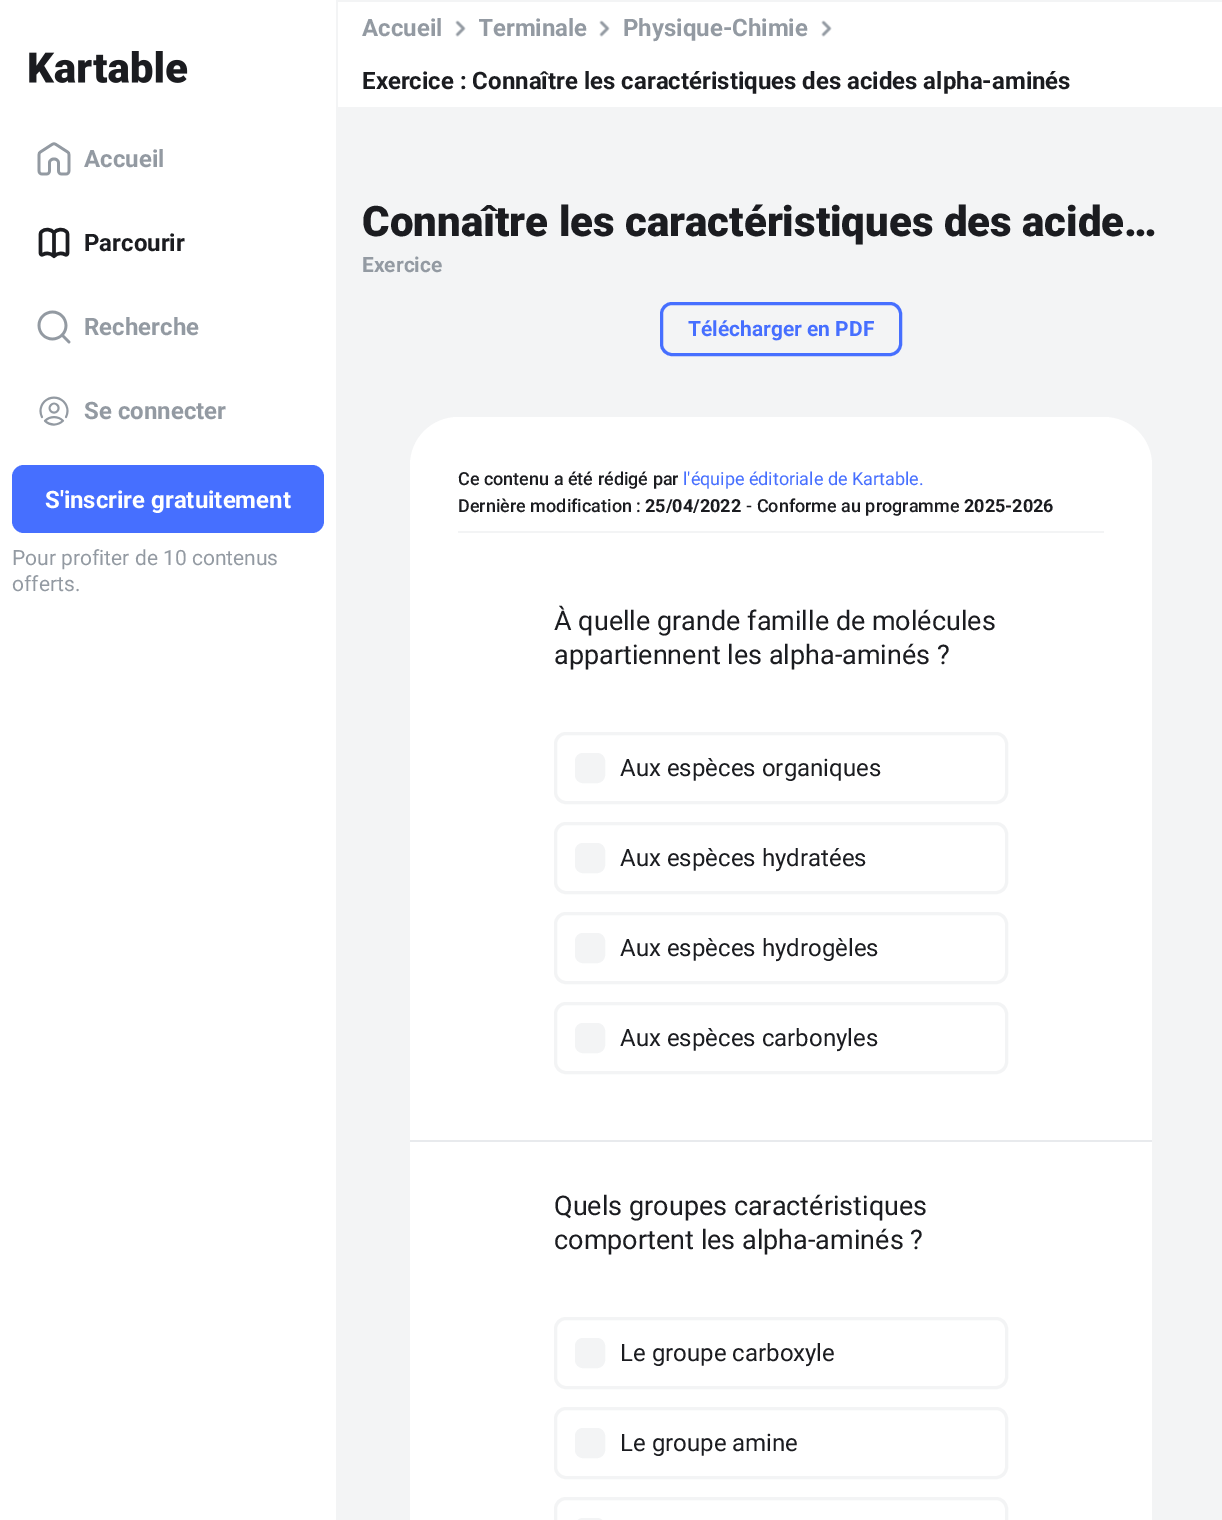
%!PS-Adobe-3.0
%%BoundingBox: 0 0 1222 1520
%%LanguageLevel: 3
%%Pages: 1
%%EndComments
%%BeginProlog
/rrect { 5 dict begin { /r /h /w /y /x } { exch def } forall
  x r add y moveto x w add y 2 copy h add r arct x w add y h add x 1 index r arct
  x y h add x y r arct x y 2 copy exch w add exch r arct closepath end } def
/drawimage { 5 dict begin { /h /w /y /x /name } { exch def } forall
  gsave x y translate w h scale
  w h 8 [w 0 0 h 0 0] name (r) file false 3 colorimage grestore end } def
%%EndProlog
%%BeginSetup
<< /PageSize [1222 1520] >> setpagedevice
%%EndSetup
%%Page: 1 1
0 1520 translate 1 -1 scale
4 setmiterlimit
1 setgray
0 0 1222 1520 rectfill
0.953 0.957 0.961 setrgbcolor
336 0 2 1520 rectfill
(images/1.raw) 29 51 159 32 drawimage
(images/2.raw) 37 142 34 34 drawimage
(images/3.raw) 38 227 32 32 drawimage
(images/4.raw) 37 310 34 34 drawimage
(images/5.raw) 39 396 30 30 drawimage
0.275 0.435 1 setrgbcolor
12 465 312 68 12 rrect fill
0.953 0.957 0.961 setrgbcolor
338 0 884 2 rectfill
(images/6.raw) 455 20 11 17 drawimage
(images/6.raw) 599 20 11 17 drawimage
(images/6.raw) 821 20 11 17 drawimage
338 107 884 1413 rectfill
0.275 0.435 1 setrgbcolor
3 setlinewidth
661.5 303.5 239 51 10.5 rrect stroke
1 setgray
newpath 458 417 moveto 1104 417 lineto 1130.5 417 1152 438.5 1152 465 curveto 1152 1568 lineto 410 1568 lineto 410 465 lineto 410 438.5 431.5 417 458 417 curveto closepath fill
0.953 0.957 0.961 setrgbcolor
458 531 646 2 rectfill
0.91 0.918 0.929 setrgbcolor
410 1140 742 2 rectfill
0.953 0.957 0.961 setrgbcolor
576.5 754.5 27 27 6.5 rrect gsave fill grestore
stroke
555.5 733.5 451 69 10.5 rrect stroke
576.5 844.5 27 27 6.5 rrect gsave fill grestore
stroke
555.5 823.5 451 69 10.5 rrect stroke
576.5 934.5 27 27 6.5 rrect gsave fill grestore
stroke
555.5 913.5 451 69 10.5 rrect stroke
576.5 1024.5 27 27 6.5 rrect gsave fill grestore
stroke
555.5 1003.5 451 69 10.5 rrect stroke
576.5 1339.5 27 27 6.5 rrect gsave fill grestore
stroke
555.5 1318.5 451 69 10.5 rrect stroke
576.5 1429.5 27 27 6.5 rrect gsave fill grestore
stroke
555.5 1408.5 451 69 10.5 rrect stroke
576.5 1519.5 27 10 6.5 rrect stroke
555.5 1498.5 451 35 10.5 rrect stroke
/Roboto-Bold [24 0 0 -24 0 0] selectfont
0.576 0.604 0.635 setrgbcolor
84 167 moveto (Accueil) show
0.106 0.11 0.125 setrgbcolor
84 251 moveto (Parcourir) show
0.576 0.604 0.635 setrgbcolor
84 335 moveto (Recherche) show
84 419 moveto (Se connecter) show
1 setgray
45 508 moveto (S'inscrire gratuitement) show
/Roboto-Regular [21 0 0 -21 0 0] selectfont
0.576 0.604 0.635 setrgbcolor
12 565 moveto (Pour profiter de 10 contenus) show
12 591 moveto (offerts.) show
/Roboto-Bold [24 0 0 -24 0 0] selectfont
362 36 moveto (Accueil) show
gsave
479 2 108 52 rectclip
478 36 moveto (Terminale) show
grestore
623 36 moveto (Physique-Chimie) show
0.106 0.11 0.125 setrgbcolor
362 89 moveto (Exercice : Connaître les caractéristiques des acides alpha-aminés) show
/Roboto-Black [42 0 0 -42 0 0] selectfont
362 236 moveto (Connaître les caractéristiques des acide…) show
/Roboto-Bold [21 0 0 -21 0 0] selectfont
0.576 0.604 0.635 setrgbcolor
362 272 moveto (Exercice) show
0.275 0.435 1 setrgbcolor
688 336 moveto (Télécharger en PDF) show
/Roboto-Medium [18 0 0 -18 0 0] selectfont
0.106 0.11 0.125 setrgbcolor
458 485 moveto (Ce contenu a été rédigé par) show
/Roboto-Regular [18 0 0 -18 0 0] selectfont
0.275 0.435 1 setrgbcolor
683 485 moveto (l'équipe éditoriale de Kartable.) show
/Roboto-Medium [18 0 0 -18 0 0] selectfont
0.106 0.11 0.125 setrgbcolor
458 512 moveto (Dernière modification :) show
/Roboto-Bold [18 0 0 -18 0 0] selectfont
645 512 moveto (25/04/2022) show
/Roboto-Medium [18 0 0 -18 0 0] selectfont
746 512 moveto (- Conforme au programme) show
/Roboto-Bold [18 0 0 -18 0 0] selectfont
964 512 moveto (2025-2026) show
/Roboto-Regular [27 0 0 -27 0 0] selectfont
554 630 moveto (À quelle grande famille de molécules) show
554 664 moveto (appartiennent les alpha-aminés ?) show
/Roboto-Regular [24 0 0 -24 0 0] selectfont
620 776 moveto (Aux espèces organiques) show
620 866 moveto (Aux espèces hydratées) show
620 956 moveto (Aux espèces hydrogèles) show
620 1046 moveto (Aux espèces carbonyles) show
/Roboto-Regular [27 0 0 -27 0 0] selectfont
554 1215 moveto (Quels groupes caractéristiques) show
554 1249 moveto (comportent les alpha-aminés ?) show
/Roboto-Regular [24 0 0 -24 0 0] selectfont
620 1361 moveto (Le groupe carboxyle) show
620 1451 moveto (Le groupe amine) show
showpage
%%EOF
